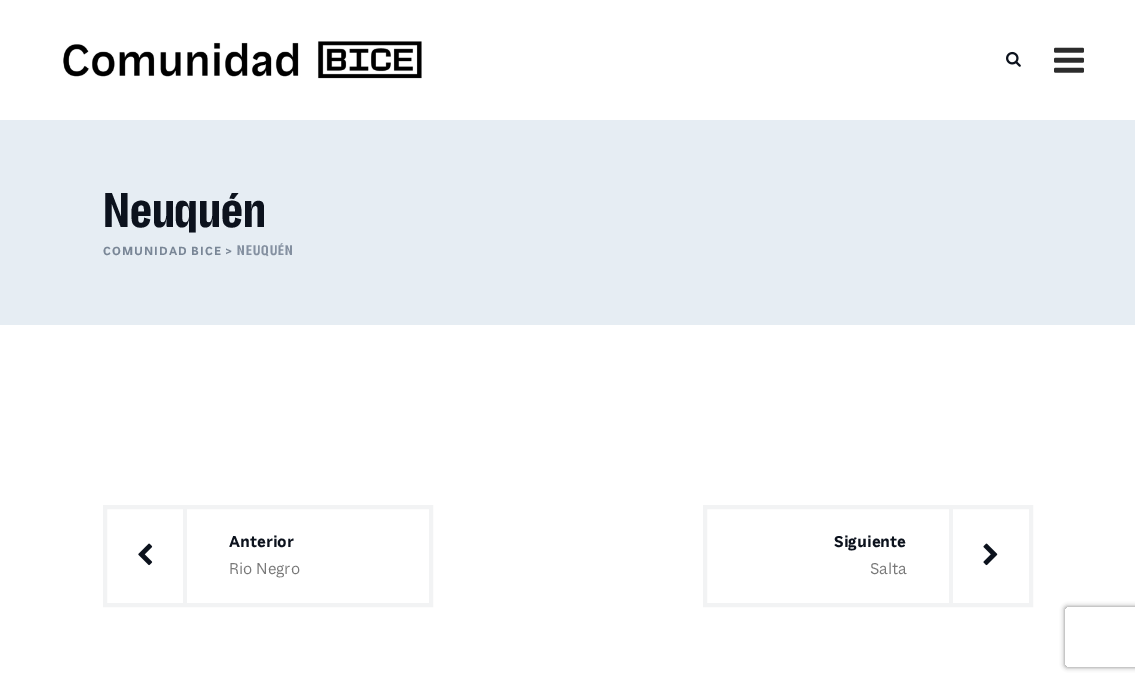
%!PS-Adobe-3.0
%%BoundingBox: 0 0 1135 681
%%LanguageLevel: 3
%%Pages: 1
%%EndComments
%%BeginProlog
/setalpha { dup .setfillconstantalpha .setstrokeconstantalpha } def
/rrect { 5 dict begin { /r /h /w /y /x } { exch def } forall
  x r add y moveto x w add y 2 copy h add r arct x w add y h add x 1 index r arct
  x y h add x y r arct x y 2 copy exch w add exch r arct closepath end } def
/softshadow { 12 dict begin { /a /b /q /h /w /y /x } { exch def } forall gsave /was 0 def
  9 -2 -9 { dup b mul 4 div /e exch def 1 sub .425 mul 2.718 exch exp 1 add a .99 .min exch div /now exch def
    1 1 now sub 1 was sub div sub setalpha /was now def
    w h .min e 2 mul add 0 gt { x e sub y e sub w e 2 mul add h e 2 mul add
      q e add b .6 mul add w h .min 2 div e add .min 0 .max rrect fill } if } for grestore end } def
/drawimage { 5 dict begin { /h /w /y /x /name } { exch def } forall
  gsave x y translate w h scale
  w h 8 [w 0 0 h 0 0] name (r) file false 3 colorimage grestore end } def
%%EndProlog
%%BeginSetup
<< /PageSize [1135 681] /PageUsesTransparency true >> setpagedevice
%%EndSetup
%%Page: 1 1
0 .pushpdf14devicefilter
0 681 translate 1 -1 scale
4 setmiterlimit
1 setgray
0 0 1135 681 rectfill
(images/1.raw) 63 41 359 38 drawimage
(images/2.raw) 1006 51 15 16 drawimage
(images/3.raw) 1054 47 30 26 drawimage
0.902 0.929 0.953 setrgbcolor
0 120 1135 205 rectfill
0.949 0.953 0.957 setrgbcolor
4 setlinewidth
105 507 326 98 rectstroke
183 509 4 94 rectfill
(images/4.raw) 138 543 15 23 drawimage
705 507 326 98 rectstroke
949 509 4 94 rectfill
(images/5.raw) 983 543 15 23 drawimage
gsave
newpath 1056 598 moveto 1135 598 lineto 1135 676 lineto 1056 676 lineto closepath 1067 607 moveto 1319 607 lineto 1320 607 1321 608 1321 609 curveto 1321 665 lineto 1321 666 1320 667 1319 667 curveto 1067 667 lineto 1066 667 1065 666 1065 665 curveto 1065 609 lineto 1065 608 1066 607 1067 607 curveto closepath eoclip newpath
0.502 setgray
1065 607 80 60 2 2.5 1 softshadow
grestore
/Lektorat-Bold [42 0 0 -42 0 0] selectfont
0.047 0.071 0.114 setrgbcolor
103 227 moveto (Neuquén) show
/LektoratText-Bold [12 0 0 -12 0 0] selectfont
0.475 0.525 0.588 setrgbcolor
103 255 moveto 1 0 (COMUNIDAD BICE >) ashow
/Lektorat-Bold [12 0 0 -12 0 0] selectfont
0.518 0.565 0.627 setrgbcolor
237 255 moveto 1 0 (NEUQUÉN) ashow
/LektoratText-Bold [16 0 0 -16 0 0] selectfont
0.047 0.071 0.114 setrgbcolor
229 547 moveto (Anterior) show
/LektoratText-Regular [16 0 0 -16 0 0] selectfont
0.475 setgray
229 574 moveto (Rio Negro) show
/LektoratText-Bold [16 0 0 -16 0 0] selectfont
0.047 0.071 0.114 setrgbcolor
834 547 moveto (Siguiente) show
/LektoratText-Regular [16 0 0 -16 0 0] selectfont
0.475 setgray
870 574 moveto (Salta) show
.poppdf14devicefilter showpage
%%EOF
